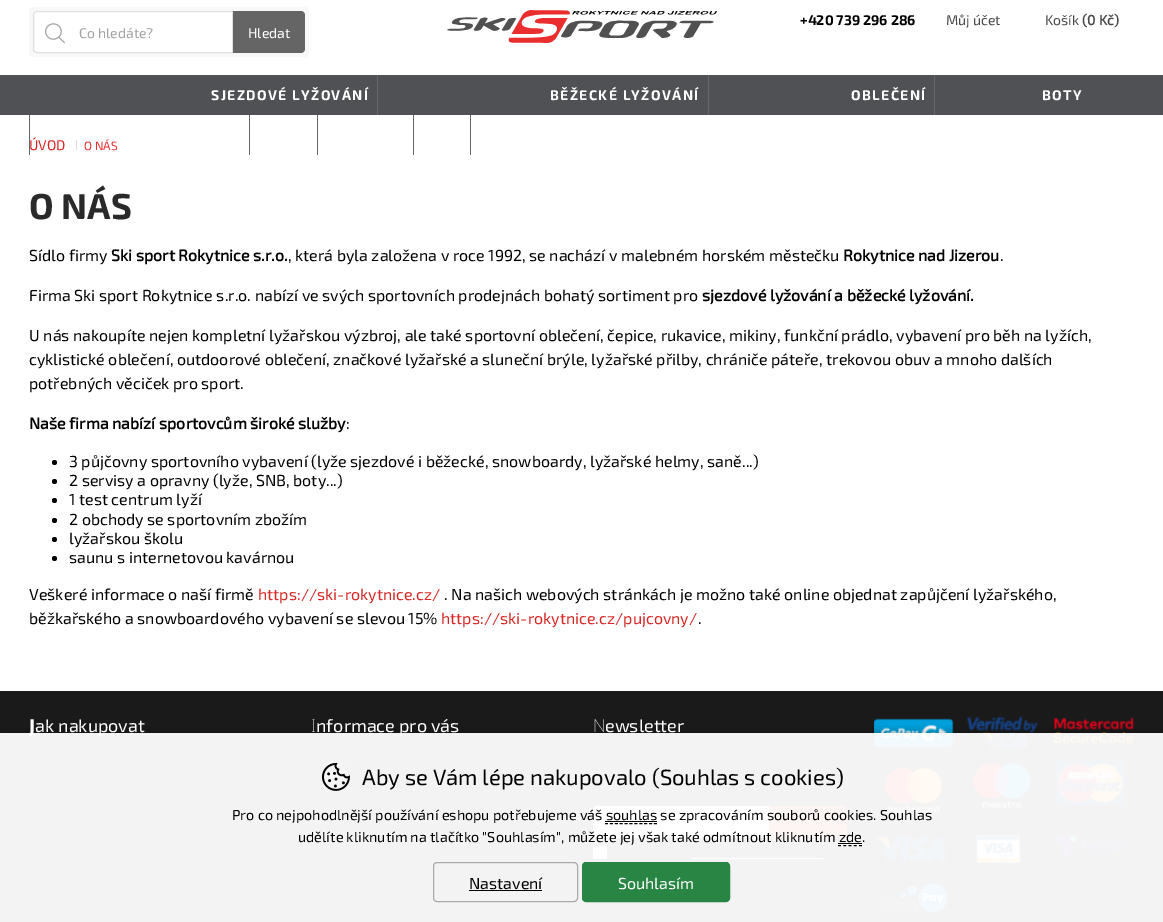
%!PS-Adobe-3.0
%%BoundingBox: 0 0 1163 922
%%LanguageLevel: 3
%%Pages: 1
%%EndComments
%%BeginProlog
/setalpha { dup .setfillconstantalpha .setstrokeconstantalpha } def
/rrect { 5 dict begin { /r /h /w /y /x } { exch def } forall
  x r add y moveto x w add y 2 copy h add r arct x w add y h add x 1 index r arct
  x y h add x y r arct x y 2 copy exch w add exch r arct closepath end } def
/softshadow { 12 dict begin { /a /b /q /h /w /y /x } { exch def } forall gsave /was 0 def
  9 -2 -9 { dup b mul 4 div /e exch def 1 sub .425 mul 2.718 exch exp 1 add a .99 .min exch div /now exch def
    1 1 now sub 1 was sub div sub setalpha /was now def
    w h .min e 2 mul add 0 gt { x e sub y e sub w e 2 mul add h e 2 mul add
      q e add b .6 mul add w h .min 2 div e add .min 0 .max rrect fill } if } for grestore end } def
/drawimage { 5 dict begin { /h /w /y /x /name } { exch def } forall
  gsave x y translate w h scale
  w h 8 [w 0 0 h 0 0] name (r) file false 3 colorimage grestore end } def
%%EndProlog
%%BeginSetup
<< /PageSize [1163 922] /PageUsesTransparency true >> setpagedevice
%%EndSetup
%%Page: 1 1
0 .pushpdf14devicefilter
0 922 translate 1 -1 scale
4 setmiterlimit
1 setgray
0 0 1163 922 rectfill
0.314 0.318 0.329 setrgbcolor
0 75 1163 40 rectfill
0.973 setgray
29 7 280 50 4 rrect fill
1 setgray
newpath 37 11.5 moveto 232.5 11.5 lineto 232.5 52.5 lineto 37 52.5 lineto 35 52.5 33.5 51 33.5 49 curveto 33.5 15 lineto 33.5 13 35 11.5 37 11.5 curveto closepath gsave fill grestore
0.878 setgray
stroke
(images/1.raw) 45 23 20 21 drawimage
0.396 setgray
newpath 233 11 moveto 301 11 lineto 303 11 305 13 305 15 curveto 305 49 lineto 305 51 303 53 301 53 curveto 233 53 lineto closepath fill
(images/2.raw) 447 10 270 33 drawimage
0.4 setgray
377 75 1 40 rectfill
708 75 1 40 rectfill
934 75 1 40 rectfill
29 115 1 40 rectfill
249 115 1 40 rectfill
317 115 1 40 rectfill
413 115 1 40 rectfill
470 115 1 40 rectfill
0.867 setgray
76 140 1 10 rectfill
0 setgray
newpath 54.5 462.5 2.5 0 360 arc closepath fill
newpath 54.5 481.5 2.5 0 360 arc closepath fill
newpath 54.5 500.5 2.5 0 360 arc closepath fill
newpath 54.5 520.5 2.5 0 360 arc closepath fill
newpath 54.5 539.5 2.5 0 360 arc closepath fill
newpath 54.5 558.5 2.5 0 360 arc closepath fill
0.102 setgray
0 691 1163 231 rectfill
1 setgray
newpath 597 806 moveto 769 806 lineto 769 838 lineto 597 838 lineto 595 838 593 836 593 834 curveto 593 810 lineto 593 808 595 806 597 806 curveto closepath fill
0.843 0.149 0.141 setrgbcolor
newpath 769 806 moveto 843 806 lineto 845 806 847 808 847 810 curveto 847 834 lineto 847 836 845 838 843 838 curveto 769 838 lineto closepath fill
0.976 setgray
593 846 14 13 rectfill
1 setgray
692 858 131 1 rectfill
(images/3.raw) 874 716 260 200 drawimage
gsave
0 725 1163 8 rectclip
0 setgray
0 731 1163 189 0 4 0.25 softshadow
grestore
/Exo2-Bold [14 0 0 -14 0 0] selectfont
0 setgray
800 25 moveto (+420 739 296 286) show
/Exo2-Regular [14 0 0 -14 0 0] selectfont
0.286 setgray
946 25 moveto (Můj účet) show
1045 25 moveto (Košík) show
/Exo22-Bold [14 0 0 -14 0 0] selectfont
1082 25 moveto (\(0 Kč\)) show
/Exo2-Regular [14 0 0 -14 0 0] selectfont
0.643 setgray
79 38 moveto (Co hledáte?) show
1 setgray
248 38 moveto (Hledat) show
/Exo2-Bold [14 0 0 -14 0 0] selectfont
211 100 moveto 1.4 0 (SJEZDOVÉ LYŽOVÁNÍ) ashow
550 100 moveto 1.4 0 (BĚŽECKÉ LYŽOVÁNÍ) ashow
851 100 moveto 1.4 0 (OBLEČENÍ) ashow
1042 100 moveto 1.4 0 (BOTY) ashow
/Exo2-Regular [14 0 0 -14 0 0] selectfont
0.843 0.149 0.141 setrgbcolor
29 150 moveto (ÚVOD) show
/Exo2-Regular [12 0 0 -12 0 0] selectfont
0.918 0.176 0.184 setrgbcolor
84 150 moveto (O NÁS) show
/Exo2-Bold [36 0 0 -36 0 0] selectfont
0.165 setgray
29 219 moveto (O NÁS) show
/Exo2-Regular [16 0 0 -16 0 0] selectfont
0 setgray
29 261 moveto (Sídlo firmy) show
/Exo22-Bold [16 0 0 -16 0 0] selectfont
111 261 moveto (Ski sport Rokytnice s.r.o.) show
/Exo2-Regular [16 0 0 -16 0 0] selectfont
288 261 moveto (, která byla založena v roce 1992, se nachází v malebném horském městečku) show
/Exo22-Bold [16 0 0 -16 0 0] selectfont
843 261 moveto (Rokytnice nad Jizerou) show
/Exo2-Regular [16 0 0 -16 0 0] selectfont
1000 261 moveto (.) show
29 301 moveto (Firma Ski sport Rokytnice s.r.o. nabízí ve svých sportovních prodejnách bohatý sortiment pro) show
/Exo22-Bold [16 0 0 -16 0 0] selectfont
702 301 moveto (sjezdové lyžování a běžecké lyžování.) show
/Exo2-Regular [16 0 0 -16 0 0] selectfont
29 341 moveto (U nás nakoupíte nejen kompletní lyžařskou výzbroj, ale také sportovní oblečení, čepice, rukavice, mikiny, funkční prádlo, vybavení pro běh na lyžích,) show
29 365 moveto (cyklistické oblečení, outdoorové oblečení, značkové lyžařské a sluneční brýle, lyžařské přilby, chrániče páteře, trekovou obuv a mnoho dalších) show
29 389 moveto (potřebných věciček pro sport.) show
/Exo22-Bold [16 0 0 -16 0 0] selectfont
29 429 moveto (Naše firma nabízí sportovcům široké služby) show
/Exo2-Regular [16 0 0 -16 0 0] selectfont
346 429 moveto (:) show
69 467 moveto (3 půjčovny sportovního vybavení \(lyže sjezdové i běžecké, snowboardy, lyžařské helmy, saně...\)) show
69 486 moveto (2 servisy a opravny \(lyže, SNB, boty...\)) show
69 505 moveto (1 test centrum lyží) show
69 525 moveto (2 obchody se sportovním zbožím) show
69 544 moveto (lyžařskou školu) show
69 563 moveto (saunu s internetovou kavárnou) show
29 600 moveto (Veškeré informace o naší firmě) show
0.843 0.149 0.141 setrgbcolor
258 600 moveto (https://ski-rokytnice.cz/) show
0 setgray
444 600 moveto (. Na našich webových stránkách je možno také online objednat zapůjčení lyžařského,) show
29 624 moveto (běžkařského a snowboardového vybavení se slevou 15%) show
0.843 0.149 0.141 setrgbcolor
441 624 moveto (https://ski-rokytnice.cz/pujcovny/) show
0 setgray
698 624 moveto (.) show
gsave
29 691 260 203 rectclip
/NotoSans-ExtraBold [18 0 0 -18 0 0] selectfont
1 setgray
29 732 moveto (J) show
grestore
/Exo2-Regular [18 0 0 -18 0 0] selectfont
1 setgray
35 732 moveto (ak nakupovat) show
/NotoSans-Thin [18 0 0 -18 0 0] selectfont
311 732 moveto (I) show
/Exo2-Regular [18 0 0 -18 0 0] selectfont
316 732 moveto (nformace pro vás) show
/NotoSans-Thin [18 0 0 -18 0 0] selectfont
593 732 moveto (N) show
/Exo2-Regular [18 0 0 -18 0 0] selectfont
605 732 moveto (ewsletter) show
0.95 setalpha
0 733 1163 189 rectfill
1 setalpha
(images/4.raw) 322 762 28 29 drawimage
/Exo2-Regular [22 0 0 -22 0 0] selectfont
0 setgray
362 785 moveto (Aby se Vám lépe nakupovalo \(Souhlas s cookies\)) show
/Exo2-Regular [14.4 0 0 -14.4 0 0] selectfont
232 820 moveto (Pro co nejpohodlnější používání eshopu potřebujeme váš souhlas se zpracováním souborů cookies. Souhlas) show
605 821 52 1 rectfill
[3 1.9] 0 setdash
newpath 605 823.5 moveto 657 823.5 lineto stroke
298 842 moveto (udělíte kliknutím na tlačítko "Souhlasím", můžete jej však také odmítnout kliknutím zde.) show
838 843 24 1 rectfill
[3 2.25] 0 setdash
newpath 838 845.5 moveto 862 845.5 lineto stroke
0.667 setgray
[] 0 setdash
433.5 862.5 144 39 3.5 rrect stroke
/Exo2-Regular [16 0 0 -16 0 0] selectfont
0 setgray
469 889 moveto (Nastavení) show
469 890 73 1 rectfill
0.157 0.522 0.267 setrgbcolor
582.5 862.5 147 39 3.5 rrect gsave fill grestore
stroke
1 setgray
618 889 moveto (Souhlasím) show
.poppdf14devicefilter showpage
%%EOF
